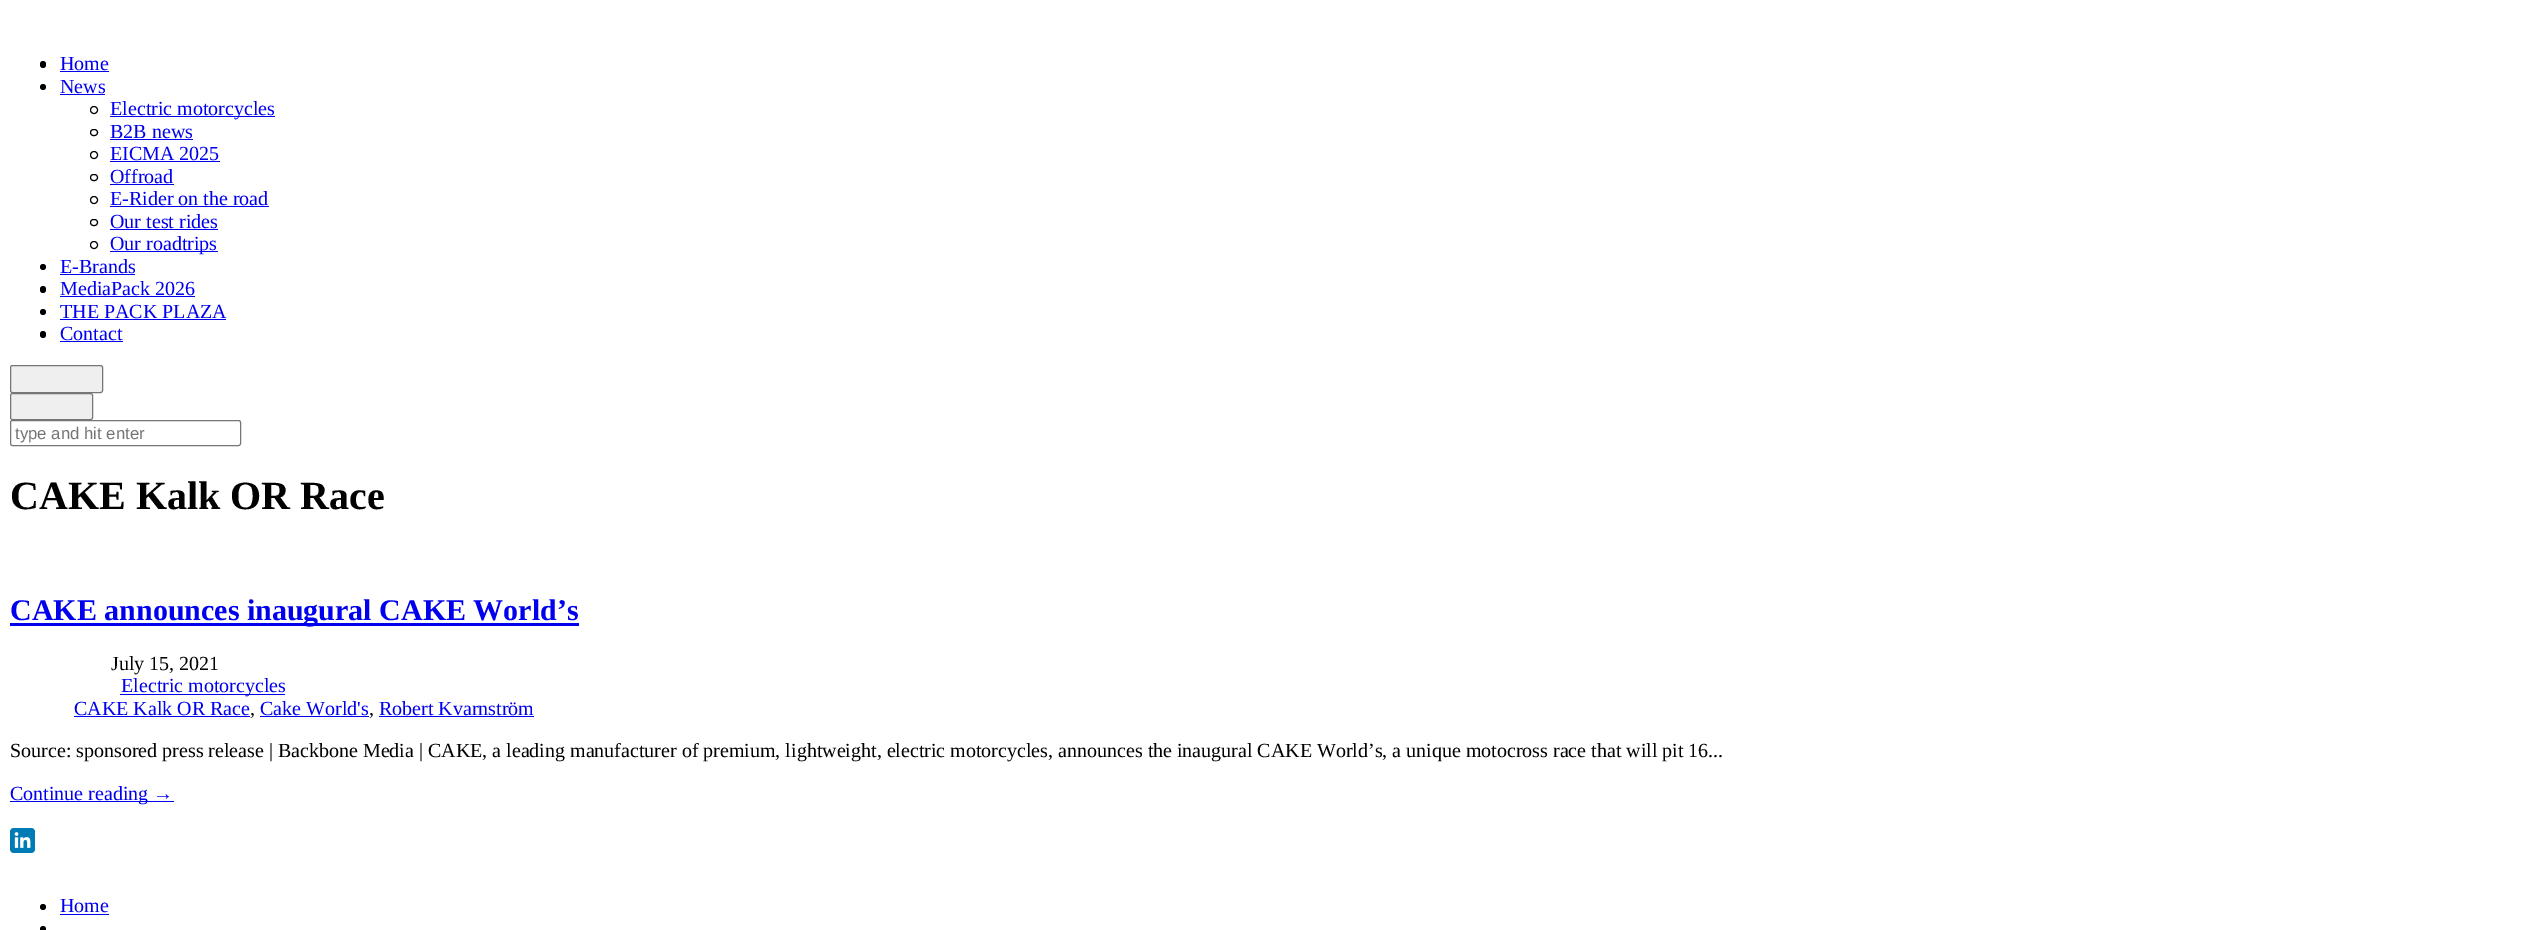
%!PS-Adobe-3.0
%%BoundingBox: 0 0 2535 930
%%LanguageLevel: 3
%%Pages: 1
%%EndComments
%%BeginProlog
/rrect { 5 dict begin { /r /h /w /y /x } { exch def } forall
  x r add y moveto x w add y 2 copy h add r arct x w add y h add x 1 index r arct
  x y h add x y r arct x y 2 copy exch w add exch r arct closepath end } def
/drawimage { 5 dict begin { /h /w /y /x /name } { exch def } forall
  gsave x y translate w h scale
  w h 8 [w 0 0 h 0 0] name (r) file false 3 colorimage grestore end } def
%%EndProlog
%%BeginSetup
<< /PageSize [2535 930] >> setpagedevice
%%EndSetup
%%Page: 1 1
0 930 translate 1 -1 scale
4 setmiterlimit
1 setgray
0 0 2535 930 rectfill
0 setgray
40 61 6 7 3 rrect fill
0 0 0.933 setrgbcolor
60 71 49 1 rectfill
0 setgray
newpath 43 87 3 0 360 arc closepath fill
0 0 0.933 setrgbcolor
60 94 45 1 rectfill
0 setgray
newpath 94 110 3.5 0 360 arc closepath stroke
0 0 0.933 setrgbcolor
110 116 165 1 rectfill
0 setgray
90.5 129.5 7 6 3 rrect stroke
0 0 0.933 setrgbcolor
110 139 83 1 rectfill
0 setgray
newpath 94 155 3.5 0 360 arc closepath stroke
0 0 0.933 setrgbcolor
110 161 110 1 rectfill
0 setgray
90.5 174.5 7 6 3 rrect stroke
0 0 0.933 setrgbcolor
110 184 64 1 rectfill
0 setgray
newpath 94 200 3.5 0 360 arc closepath stroke
0 0 0.933 setrgbcolor
110 206 159 1 rectfill
0 setgray
90.5 219.5 7 6 3 rrect stroke
0 0 0.933 setrgbcolor
110 229 108 1 rectfill
0 setgray
newpath 94 245 3.5 0 360 arc closepath stroke
0 0 0.933 setrgbcolor
110 251 108 1 rectfill
0 setgray
newpath 43 267 3 0 360 arc closepath fill
0 0 0.933 setrgbcolor
60 274 75 1 rectfill
0 setgray
40 286 6 7 3 rrect fill
0 0 0.933 setrgbcolor
60 296 135 1 rectfill
0 setgray
newpath 43 312 3 0 360 arc closepath fill
0 0 0.933 setrgbcolor
60 319 166 1 rectfill
0 setgray
40 331 6 7 3 rrect fill
0 0 0.933 setrgbcolor
60 341 63 1 rectfill
0.937 setgray
10.5 365.5 92 27 2 rrect gsave fill grestore
0.463 setgray
stroke
0.937 setgray
10.5 393.5 82 26 2 rrect gsave fill grestore
0.463 setgray
stroke
10.5 420.5 230 25 2 rrect stroke
0 0 0.933 setrgbcolor
10 623 569 3 rectfill
120 694 165 1 rectfill
74 716 176 1 rectfill
260 716 109 1 rectfill
379 716 155 1 rectfill
10 801 164 1 rectfill
0 0.482 0.71 setrgbcolor
10 828 25 25 4 rrect fill
(images/1.raw) 14 832 17 16 drawimage
0 setgray
newpath 43 907 3 0 360 arc closepath fill
0 0 0.933 setrgbcolor
60 914 49 1 rectfill
0 setgray
40 926 6 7 3 rrect fill
/LiberationSerif-Regular [20 0 0 -20 0 0] selectfont
0 0 0.933 setrgbcolor
60 70 moveto (Home) show
60 93 moveto (News) show
110 115 moveto (Electric motorcycles) show
110 138 moveto (B2B news) show
110 160 moveto (EICMA 2025) show
110 183 moveto (Offroad) show
110 205 moveto (E-Rider on the road) show
110 228 moveto (Our test rides) show
110 250 moveto (Our roadtrips) show
60 273 moveto (E-Brands) show
60 295 moveto (MediaPack 2026) show
60 318 moveto (THE PACK PLAZA) show
60 340 moveto (Contact) show
/LiberationSans-Regular [16.75 0 0 -16.75 0 0] selectfont
0.459 setgray
15 439 moveto (type and hit enter) show
/LiberationSerif-Bold [40 0 0 -40 0 0] selectfont
0 setgray
10 509 moveto (CAKE Kalk OR Race) show
/LiberationSerif-Bold [30 0 0 -30 0 0] selectfont
0 0 0.933 setrgbcolor
10 620 moveto (CAKE announces inaugural CAKE World’s) show
/LiberationSerif-Regular [20 0 0 -20 0 0] selectfont
0 setgray
111 670 moveto (July 15, 2021) show
0 0 0.933 setrgbcolor
121 692 moveto (Electric motorcycles) show
74 715 moveto (CAKE Kalk OR Race) show
0 setgray
250 715 moveto (,) show
0 0 0.933 setrgbcolor
260 715 moveto (Cake World's) show
0 setgray
369 715 moveto (,) show
0 0 0.933 setrgbcolor
379 715 moveto (Robert Kvarnström) show
0 setgray
10 757 moveto (Source: sponsored press release | Backbone Media | CAKE, a leading manufacturer of premium, lightweight, electric motorcycles, announces the inaugural CAKE World’s, a unique motocross race that will pit 16...) show
0 0 0.933 setrgbcolor
10 800 moveto (Continue reading →) show
60 912 moveto (Home) show
showpage
%%EOF
